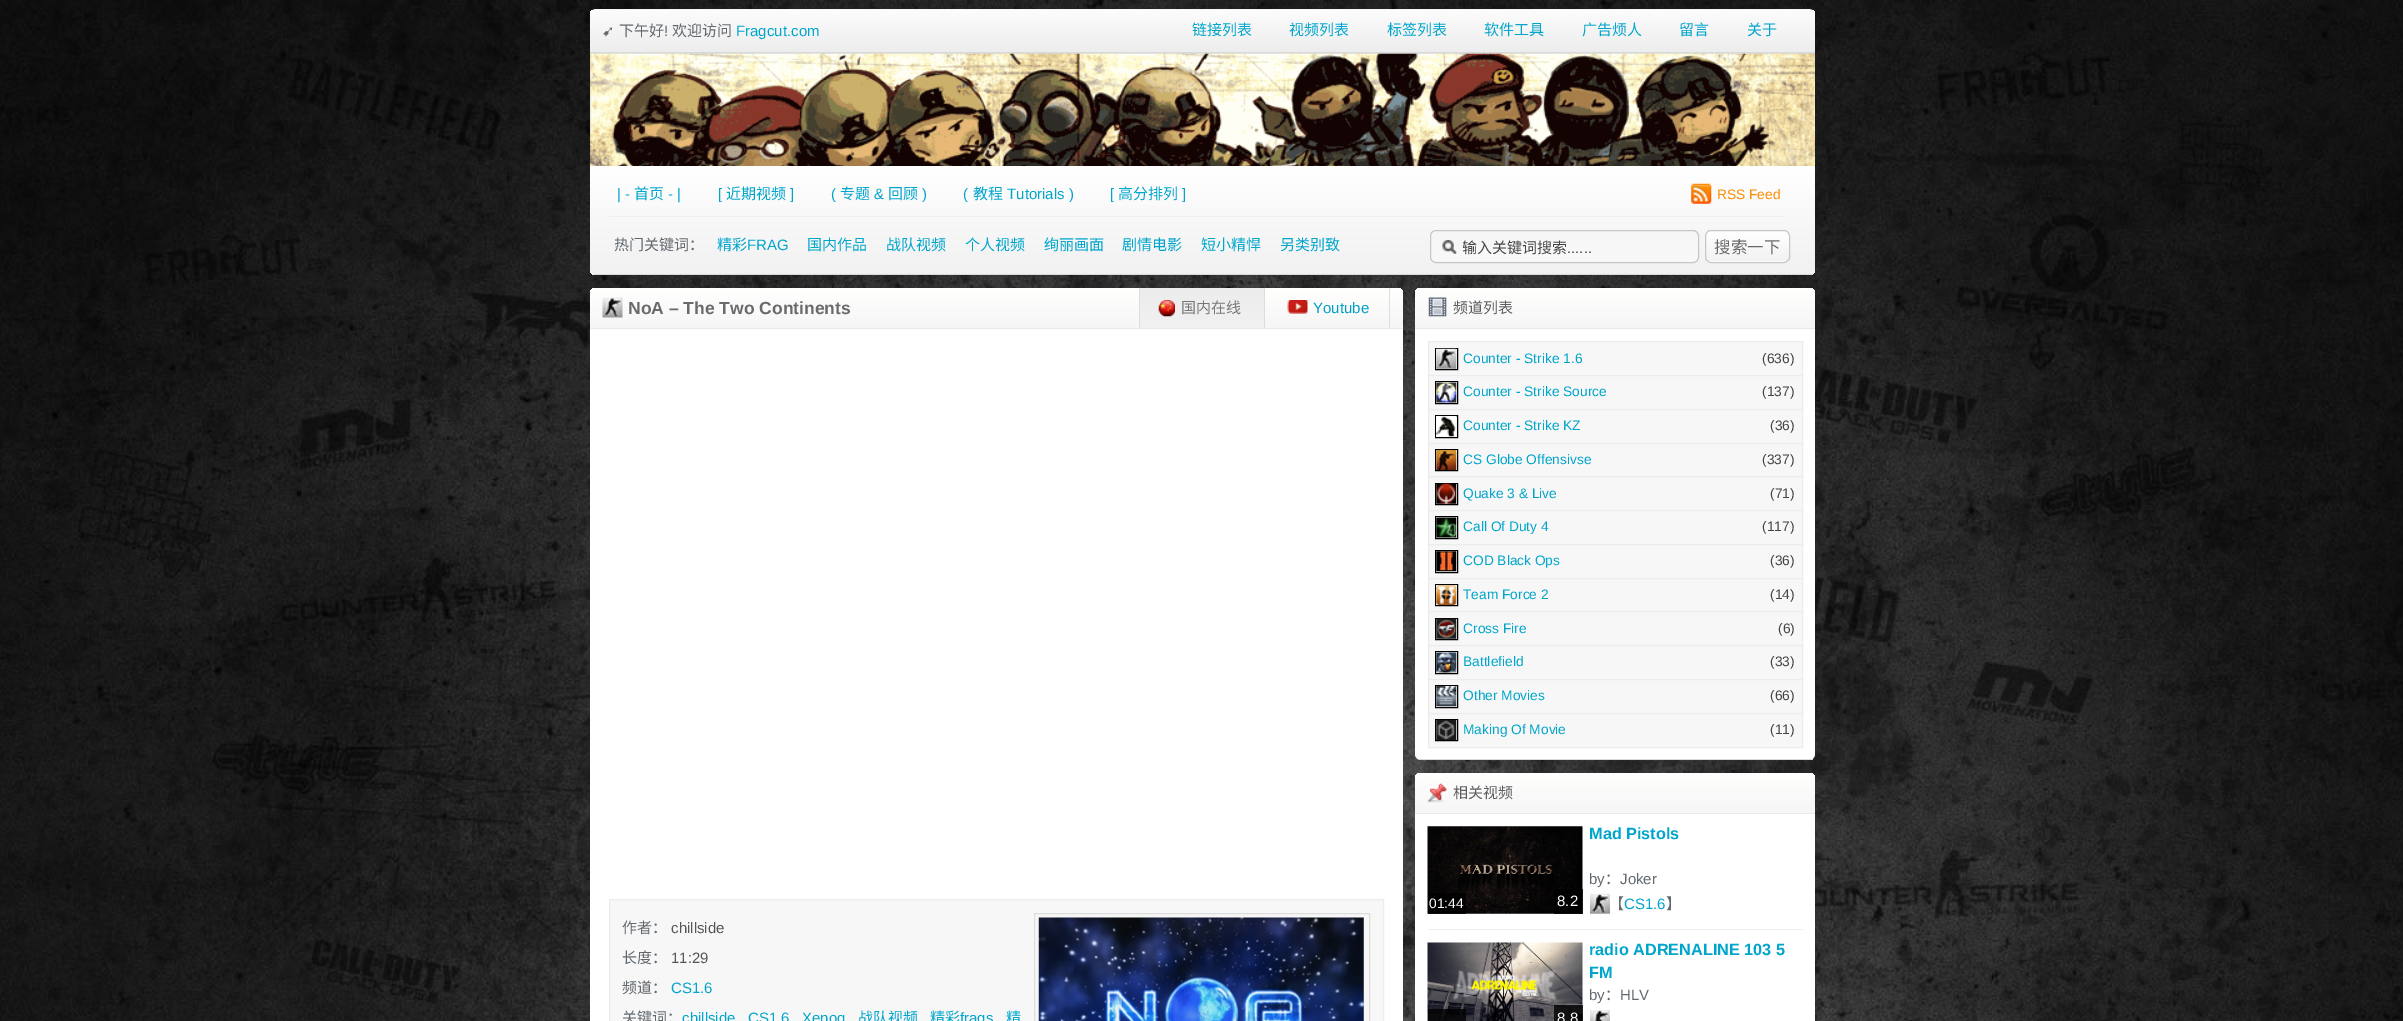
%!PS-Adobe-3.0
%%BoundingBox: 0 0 2403 1021
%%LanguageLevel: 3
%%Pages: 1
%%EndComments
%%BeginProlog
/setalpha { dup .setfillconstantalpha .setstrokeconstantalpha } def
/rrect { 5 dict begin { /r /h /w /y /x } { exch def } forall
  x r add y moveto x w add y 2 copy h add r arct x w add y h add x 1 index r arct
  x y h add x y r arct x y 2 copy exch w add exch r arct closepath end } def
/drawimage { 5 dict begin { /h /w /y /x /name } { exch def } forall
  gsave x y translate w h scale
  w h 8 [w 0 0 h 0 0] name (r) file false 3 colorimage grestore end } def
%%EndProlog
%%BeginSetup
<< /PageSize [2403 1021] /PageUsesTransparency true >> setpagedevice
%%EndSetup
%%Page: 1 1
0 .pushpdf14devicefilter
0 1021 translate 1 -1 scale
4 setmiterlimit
1 setgray
0 0 2403 1021 rectfill
(images/1.raw) 0 0 2403 1021 drawimage
gsave
newpath 596 9 moveto 1809 9 lineto 1812.5 9 1815 11.5 1815 15 curveto 1815 54 lineto 590 54 lineto 590 15 lineto 590 11.5 592.5 9 596 9 curveto closepath clip newpath
gsave newpath 590 10 moveto 1815 10 lineto 1815 52 lineto 590 52 lineto closepath clip newpath
<< /ShadingType 2 /ColorSpace /DeviceRGB /Coords [1203 10 1203 53] /Extend [true true] /Function << /FunctionType 2 /Domain [0 1] /C0 [0.992 0.988 0.988] /C1 [0.929 0.929 0.929] /N 1 >> >> shfill grestore
grestore
0.965 0.965 0.969 setrgbcolor
newpath 596 9 moveto 593 9 590 12 590 15 curveto 590 12 593 10 596 10 curveto 1809 10 lineto 1812 10 1815 12 1815 15 curveto 1815 12 1812 9 1809 9 curveto closepath fill
0.851 setgray
590 52 1225 2 rectfill
(images/2.raw) 590 53 1225 113 drawimage
gsave newpath 590 166 moveto 1815 166 lineto 1815 269 lineto 1815 272.5 1812.5 275 1809 275 curveto 596 275 lineto 592.5 275 590 272.5 590 269 curveto closepath clip newpath
<< /ShadingType 2 /ColorSpace /DeviceRGB /Coords [1203 166 1203 275] /Extend [true true] /Function << /FunctionType 2 /Domain [0 1] /C0 [1 1 1] /C1 [0.945 0.945 0.945] /N 1 >> >> shfill grestore
(images/3.raw) 1691 183 21 21 drawimage
0.937 setgray
609 216 1175 1 rectfill
0.851 setgray
594 274 1219 1 rectfill
gsave
1430 230 269 33 6 rrect clip newpath
gsave newpath 1430 231 moveto 1699 231 lineto 1699 261 lineto 1430 261 lineto closepath clip newpath
<< /ShadingType 2 /ColorSpace /DeviceRGB /Coords [1564 231 1564 261] /Extend [true true] /Function << /FunctionType 2 /Domain [0 1] /C0 [0.965 0.965 0.965] /C1 [0.976 0.976 0.976] /N 1 >> >> shfill grestore
gsave newpath 1430 261 moveto 1699 261 lineto 1699 263 lineto 1430 263 lineto closepath clip newpath
<< /ShadingType 2 /ColorSpace /DeviceRGB /Coords [1564 261 1564 291] /Extend [true true] /Function << /FunctionType 2 /Domain [0 1] /C0 [0.965 0.965 0.965] /C1 [0.976 0.976 0.976] /N 1 >> >> shfill grestore
grestore
0.78 setgray
1430.5 230.5 268 32 5.5 rrect stroke
(images/4.raw) 1442 240 15 14 drawimage
gsave
1705 230 85 33 6 rrect clip newpath
gsave newpath 1705 231 moveto 1790 231 lineto 1790 261 lineto 1705 261 lineto closepath clip newpath
<< /ShadingType 2 /ColorSpace /DeviceRGB /Coords [1748 231 1748 261] /Extend [true true] /Function << /FunctionType 2 /Domain [0 1] /C0 [1 1 1] /C1 [0.949 0.949 0.949] /N 1 >> >> shfill grestore
gsave newpath 1705 261 moveto 1790 261 lineto 1790 263 lineto 1705 263 lineto closepath clip newpath
<< /ShadingType 2 /ColorSpace /DeviceRGB /Coords [1748 261 1748 291] /Extend [true true] /Function << /FunctionType 2 /Domain [0 1] /C0 [1 1 1] /C1 [0.949 0.949 0.949] /N 1 >> >> shfill grestore
grestore
1705.5 230.5 84 32 5.5 rrect stroke
1 setgray
590 288 813 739 6 rrect fill
gsave newpath 596 288 moveto 1397 288 lineto 1400.5 288 1403 290.5 1403 294 curveto 1403 328 lineto 590 328 lineto 590 294 lineto 590 290.5 592.5 288 596 288 curveto closepath clip newpath
<< /ShadingType 2 /ColorSpace /DeviceRGB /Coords [996 287 996 328] /Extend [true true] /Function << /FunctionType 2 /Domain [0 1] /C0 [1 1 0.996] /C1 [0.965 0.965 0.965] /N 1 >> >> shfill grestore
0.906 0.914 0.922 setrgbcolor
590 328 813 1 rectfill
(images/5.raw) 602 297 21 21 drawimage
0.867 setgray
1389 288 1 40 rectfill
gsave newpath 1140 288 moveto 1264 288 lineto 1264 328 lineto 1140 328 lineto closepath clip newpath
<< /ShadingType 2 /ColorSpace /DeviceRGB /Coords [1202 288 1202 328] /Extend [true true] /Function << /FunctionType 2 /Domain [0 1] /C0 [0.925 0.925 0.925] /C1 [0.945 0.945 0.945] /N 1 >> >> shfill grestore
1139 288 1 40 rectfill
(images/6.raw) 1158 300 17 17 drawimage
1264 288 1 40 rectfill
(images/7.raw) 1287 300 21 14 drawimage
0.969 setgray
newpath 609.5 899.5 moveto 1383.5 899.5 lineto 1383.5 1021.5 lineto 609.5 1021.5 lineto closepath gsave fill grestore
0.925 setgray
stroke
0.867 setgray
1034.5 913.5 335 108 rectstroke
(images/8.raw) 1038 917 326 104 drawimage
1 setgray
1415 288 400 472 6 rrect fill
0.851 setgray
1419 759 394 1 rectfill
gsave newpath 1421 288 moveto 1809 288 lineto 1812.5 288 1815 290.5 1815 294 curveto 1815 328 lineto 1415 328 lineto 1415 294 lineto 1415 290.5 1417.5 288 1421 288 curveto closepath clip newpath
<< /ShadingType 2 /ColorSpace /DeviceRGB /Coords [1615 287 1615 328] /Extend [true true] /Function << /FunctionType 2 /Domain [0 1] /C0 [1 1 0.996] /C1 [0.965 0.965 0.965] /N 1 >> >> shfill grestore
0.906 0.914 0.922 setrgbcolor
1415 328 400 1 rectfill
(images/9.raw) 1428 297 19 20 drawimage
0.969 setgray
newpath 1428.5 341.5 moveto 1802.5 341.5 lineto 1802.5 375.5 lineto 1428.5 375.5 lineto closepath gsave fill grestore
0.925 setgray
stroke
0 setgray
1435.5 348.5 22 21 rectstroke
(images/10.raw) 1436 348 21 21 drawimage
0.969 setgray
newpath 1428.5 375.5 moveto 1802.5 375.5 lineto 1802.5 409.5 lineto 1428.5 409.5 lineto closepath gsave fill grestore
0.925 setgray
stroke
0 setgray
1435.5 381.5 22 22 rectstroke
(images/11.raw) 1436 382 21 21 drawimage
0.969 setgray
newpath 1428.5 409.5 moveto 1802.5 409.5 lineto 1802.5 443.5 lineto 1428.5 443.5 lineto closepath gsave fill grestore
0.925 setgray
stroke
0 setgray
1435.5 415.5 22 22 rectstroke
(images/12.raw) 1436 416 20 21 drawimage
0.969 setgray
1429 444 373 32 rectfill
0.925 setgray
1428.5 443.5 374 34 rectstroke
0 setgray
1435.5 449.5 22 21 rectstroke
(images/13.raw) 1436 450 21 20 drawimage
0.969 setgray
newpath 1428.5 476.5 moveto 1802.5 476.5 lineto 1802.5 510.5 lineto 1428.5 510.5 lineto closepath gsave fill grestore
0.925 setgray
stroke
0 setgray
1435.5 483.5 22 21 rectstroke
(images/14.raw) 1436 483 21 21 drawimage
0.969 setgray
newpath 1428.5 510.5 moveto 1802.5 510.5 lineto 1802.5 544.5 lineto 1428.5 544.5 lineto closepath gsave fill grestore
0.925 setgray
stroke
0 setgray
1435.5 516.5 22 22 rectstroke
(images/15.raw) 1436 517 21 21 drawimage
0.969 setgray
newpath 1428.5 544.5 moveto 1802.5 544.5 lineto 1802.5 578.5 lineto 1428.5 578.5 lineto closepath gsave fill grestore
0.925 setgray
stroke
0 setgray
1435.5 550.5 22 22 rectstroke
(images/16.raw) 1436 551 21 21 drawimage
0.969 setgray
1429 579 373 32 rectfill
0.925 setgray
1428.5 578.5 374 34 rectstroke
0 setgray
1435.5 584.5 22 21 rectstroke
(images/17.raw) 1436 585 21 20 drawimage
0.969 setgray
newpath 1428.5 611.5 moveto 1802.5 611.5 lineto 1802.5 645.5 lineto 1428.5 645.5 lineto closepath gsave fill grestore
0.925 setgray
stroke
0 setgray
1435.5 618.5 22 21 rectstroke
(images/18.raw) 1436 618 21 21 drawimage
0.969 setgray
newpath 1428.5 645.5 moveto 1802.5 645.5 lineto 1802.5 679.5 lineto 1428.5 679.5 lineto closepath gsave fill grestore
0.925 setgray
stroke
0 setgray
1435.5 651.5 22 22 rectstroke
(images/19.raw) 1436 652 21 21 drawimage
0.969 setgray
newpath 1428.5 679.5 moveto 1802.5 679.5 lineto 1802.5 713.5 lineto 1428.5 713.5 lineto closepath gsave fill grestore
0.925 setgray
stroke
0 setgray
1435.5 685.5 22 22 rectstroke
(images/20.raw) 1436 686 21 21 drawimage
0.969 setgray
newpath 1428.5 713.5 moveto 1802.5 713.5 lineto 1802.5 747.5 lineto 1428.5 747.5 lineto closepath gsave fill grestore
0.925 setgray
stroke
0 setgray
1435.5 719.5 22 21 rectstroke
(images/21.raw) 1436 720 21 20 drawimage
1 setgray
1415 773 400 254 6 rrect fill
gsave newpath 1421 773 moveto 1809 773 lineto 1812.5 773 1815 775.5 1815 779 curveto 1815 813 lineto 1415 813 lineto 1415 779 lineto 1415 775.5 1417.5 773 1421 773 curveto closepath clip newpath
<< /ShadingType 2 /ColorSpace /DeviceRGB /Coords [1615 773 1615 813] /Extend [true true] /Function << /FunctionType 2 /Domain [0 1] /C0 [1 1 0.996] /C1 [0.965 0.965 0.965] /N 1 >> >> shfill grestore
0.906 0.914 0.922 setrgbcolor
1415 813 400 1 rectfill
(images/22.raw) 1427 783 20 20 drawimage
0.937 setgray
1428 929 375 1 rectfill
(images/23.raw) 1427 826 156 88 drawimage
(images/24.raw) 1590 893 20 21 drawimage
0.8 setalpha
0 setgray
1428 893 38 21 rectfill
1554 889 29 25 rectfill
1 setalpha
(images/25.raw) 1427 942 156 79 drawimage
(images/26.raw) 1590 1010 20 11 drawimage
0.8 setalpha
1428 1009 38 12 rectfill
1554 1005 29 16 rectfill
/DejaVuSans-Regular [15 0 0 -15 0 0] selectfont
1 setalpha
0.38 0.408 0.431 setrgbcolor
602 36 moveto (➹) show
/NotoSansCJKSC-Regular [15 0 0 -15 0 0] selectfont
619 36 moveto (下午好) show
/LiberationSans-Regular [15 0 0 -15 0 0] selectfont
664 36 moveto (!) show
/NotoSansCJKSC-Regular [15 0 0 -15 0 0] selectfont
672 36 moveto (欢迎访问) show
/LiberationSans-Regular [15 0 0 -15 0 0] selectfont
0 0.647 0.8 setrgbcolor
736 36 moveto (Fragcut.com) show
/NotoSansCJKSC-Regular [15 0 0 -15 0 0] selectfont
1192 35 moveto (链接列表) show
1289 35 moveto (视频列表) show
1387 35 moveto (标签列表) show
1484 35 moveto (软件工具) show
1582 35 moveto (广告烦人) show
1679 35 moveto (留言) show
1747 35 moveto (关于) show
/LiberationSans-Regular [15 0 0 -15 0 0] selectfont
617 199 moveto (| -) show
/NotoSansCJKSC-Regular [15 0 0 -15 0 0] selectfont
634 199 moveto (首页) show
/LiberationSans-Regular [15 0 0 -15 0 0] selectfont
668 199 moveto (- |) show
718 199 moveto ([) show
/NotoSansCJKSC-Regular [15 0 0 -15 0 0] selectfont
726 199 moveto (近期视频) show
/LiberationSans-Regular [15 0 0 -15 0 0] selectfont
790 199 moveto (]) show
831 199 moveto (\() show
/NotoSansCJKSC-Regular [15 0 0 -15 0 0] selectfont
840 199 moveto (专题) show
/LiberationSans-Regular [15 0 0 -15 0 0] selectfont
874 199 moveto (&) show
/NotoSansCJKSC-Regular [15 0 0 -15 0 0] selectfont
888 199 moveto (回顾) show
/LiberationSans-Regular [15 0 0 -15 0 0] selectfont
922 199 moveto (\)) show
963 199 moveto (\() show
/NotoSansCJKSC-Regular [15 0 0 -15 0 0] selectfont
973 199 moveto (教程) show
/LiberationSans-Regular [15 0 0 -15 0 0] selectfont
1007 199 moveto (Tutorials \)) show
1110 199 moveto ([) show
/NotoSansCJKSC-Regular [15 0 0 -15 0 0] selectfont
1118 199 moveto (高分排列) show
/LiberationSans-Regular [15 0 0 -15 0 0] selectfont
1182 199 moveto (]) show
/LiberationSans-Regular [13.75 0 0 -13.75 0 0] selectfont
1 0.545 0 setrgbcolor
1717 199 moveto (RSS Feed) show
/NotoSansCJKSC-Regular [15 0 0 -15 0 0] selectfont
0.38 0.408 0.431 setrgbcolor
614 250 moveto (热门关键词：) show
0 0.647 0.8 setrgbcolor
717 250 moveto (精彩) show
/LiberationSans-Regular [15 0 0 -15 0 0] selectfont
747 250 moveto (FRAG) show
/NotoSansCJKSC-Regular [15 0 0 -15 0 0] selectfont
807 250 moveto (国内作品) show
886 250 moveto (战队视频) show
965 250 moveto (个人视频) show
1044 250 moveto (绚丽画面) show
1122 250 moveto (剧情电影) show
1201 250 moveto (短小精悍) show
1280 250 moveto (另类别致) show
gsave
1463 236 235 22 rectclip
0.267 setgray
1462 253 moveto (输入关键词搜索) show
grestore
/LiberationSans-Regular [15 0 0 -15 0 0] selectfont
0.267 setgray
1567 253 moveto (......) show
/NotoSansCJKSC-Regular [16.5 0 0 -16.5 0 0] selectfont
0.416 setgray
1714 253 moveto (搜索一下) show
/LiberationSans-Bold [17.5 0 0 -17.5 0 0] selectfont
628 314 moveto (NoA – The Two Continents) show
/NotoSansCJKSC-Regular [15 0 0 -15 0 0] selectfont
0.467 setgray
1181 313 moveto (国内在线) show
/LiberationSans-Regular [15 0 0 -15 0 0] selectfont
0 0.627 0.776 setrgbcolor
1313 313 moveto (Youtube) show
/NotoSansCJKSC-Regular [15 0 0 -15 0 0] selectfont
0.38 0.408 0.431 setrgbcolor
622 933 moveto (作者：) show
/LiberationSans-Regular [15 0 0 -15 0 0] selectfont
0.337 setgray
671 933 moveto (chillside) show
/NotoSansCJKSC-Regular [15 0 0 -15 0 0] selectfont
0.38 0.408 0.431 setrgbcolor
622 963 moveto (长度：) show
/LiberationSans-Regular [15 0 0 -15 0 0] selectfont
0.337 setgray
671 963 moveto (11:29) show
/NotoSansCJKSC-Regular [15 0 0 -15 0 0] selectfont
0.38 0.408 0.431 setrgbcolor
622 993 moveto (频道：) show
/LiberationSans-Regular [15 0 0 -15 0 0] selectfont
0 0.647 0.8 setrgbcolor
671 993 moveto (CS1.6) show
/NotoSansCJKSC-Regular [15 0 0 -15 0 0] selectfont
0.38 0.408 0.431 setrgbcolor
622 1023 moveto (关键词：) show
/LiberationSans-Regular [15 0 0 -15 0 0] selectfont
0 0.647 0.8 setrgbcolor
682 1023 moveto (chillside) show
748 1023 moveto (CS1.6) show
802 1023 moveto (Xenoq) show
/NotoSansCJKSC-Regular [15 0 0 -15 0 0] selectfont
858 1023 moveto (战队视频) show
930 1023 moveto (精彩) show
/LiberationSans-Regular [15 0 0 -15 0 0] selectfont
960 1023 moveto (frags) show
/NotoSansCJKSC-Regular [15 0 0 -15 0 0] selectfont
1006 1023 moveto (精) show
0.365 setgray
1453 313 moveto (频道列表) show
/LiberationSans-Regular [13.75 0 0 -13.75 0 0] selectfont
0 0.647 0.8 setrgbcolor
1463 363 moveto (Counter - Strike 1.6) show
0.267 setgray
1762 363 moveto (\(636\)) show
0 0.647 0.8 setrgbcolor
1463 396 moveto (Counter - Strike Source) show
0.267 setgray
1762 396 moveto (\(137\)) show
0 0.647 0.8 setrgbcolor
1463 430 moveto (Counter - Strike KZ) show
0.267 setgray
1770 430 moveto (\(36\)) show
0 0.647 0.8 setrgbcolor
1463 464 moveto (CS Globe Offensivse) show
0.267 setgray
1762 464 moveto (\(337\)) show
0 0.647 0.8 setrgbcolor
1463 498 moveto (Quake 3 & Live) show
0.267 setgray
1770 498 moveto (\(71\)) show
0 0.647 0.8 setrgbcolor
1463 531 moveto (Call Of Duty 4) show
0.267 setgray
1762 531 moveto (\(117\)) show
0 0.647 0.8 setrgbcolor
1463 565 moveto (COD Black Ops) show
0.267 setgray
1770 565 moveto (\(36\)) show
0 0.647 0.8 setrgbcolor
1463 599 moveto (Team Force 2) show
0.267 setgray
1770 599 moveto (\(14\)) show
0 0.647 0.8 setrgbcolor
1463 633 moveto (Cross Fire) show
0.267 setgray
1778 633 moveto (\(6\)) show
0 0.647 0.8 setrgbcolor
1463 666 moveto (Battlefield) show
0.267 setgray
1770 666 moveto (\(33\)) show
0 0.647 0.8 setrgbcolor
1463 700 moveto (Other Movies) show
0.267 setgray
1770 700 moveto (\(66\)) show
0 0.647 0.8 setrgbcolor
1463 734 moveto (Making Of Movie) show
0.267 setgray
1770 734 moveto (\(11\)) show
/NotoSansCJKSC-Regular [15 0 0 -15 0 0] selectfont
0.365 setgray
1453 798 moveto (相关视频) show
/LiberationSans-Bold [16.25 0 0 -16.25 0 0] selectfont
0 0.647 0.8 setrgbcolor
1589 839 moveto (Mad Pistols) show
/LiberationSans-Regular [15 0 0 -15 0 0] selectfont
0.38 0.408 0.431 setrgbcolor
1589 884 moveto (by) show
/NotoSansCJKSC-Regular [15 0 0 -15 0 0] selectfont
1605 884 moveto (：) show
/LiberationSans-Regular [15 0 0 -15 0 0] selectfont
1620 884 moveto (Joker) show
/NotoSansCJKSC-Regular [15 0 0 -15 0 0] selectfont
1609 909 moveto (【) show
/LiberationSans-Regular [15 0 0 -15 0 0] selectfont
0 0.647 0.8 setrgbcolor
1624 909 moveto (CS1.6) show
/NotoSansCJKSC-Regular [15 0 0 -15 0 0] selectfont
0.38 0.408 0.431 setrgbcolor
1666 909 moveto (】) show
/LiberationSans-Regular [13.75 0 0 -13.75 0 0] selectfont
1 setgray
1429 908 moveto (01:44) show
/LiberationSans-Regular [15 0 0 -15 0 0] selectfont
1557 906 moveto (8.2) show
/LiberationSans-Bold [16.25 0 0 -16.25 0 0] selectfont
0 0.647 0.8 setrgbcolor
1589 955 moveto (radio ADRENALINE 103 5) show
1589 978 moveto (FM) show
/LiberationSans-Regular [15 0 0 -15 0 0] selectfont
0.38 0.408 0.431 setrgbcolor
1589 1000 moveto (by) show
/NotoSansCJKSC-Regular [15 0 0 -15 0 0] selectfont
1605 1000 moveto (：) show
/LiberationSans-Regular [15 0 0 -15 0 0] selectfont
1620 1000 moveto (HLV) show
1 setgray
1557 1023 moveto (8.8) show
.poppdf14devicefilter showpage
%%EOF
